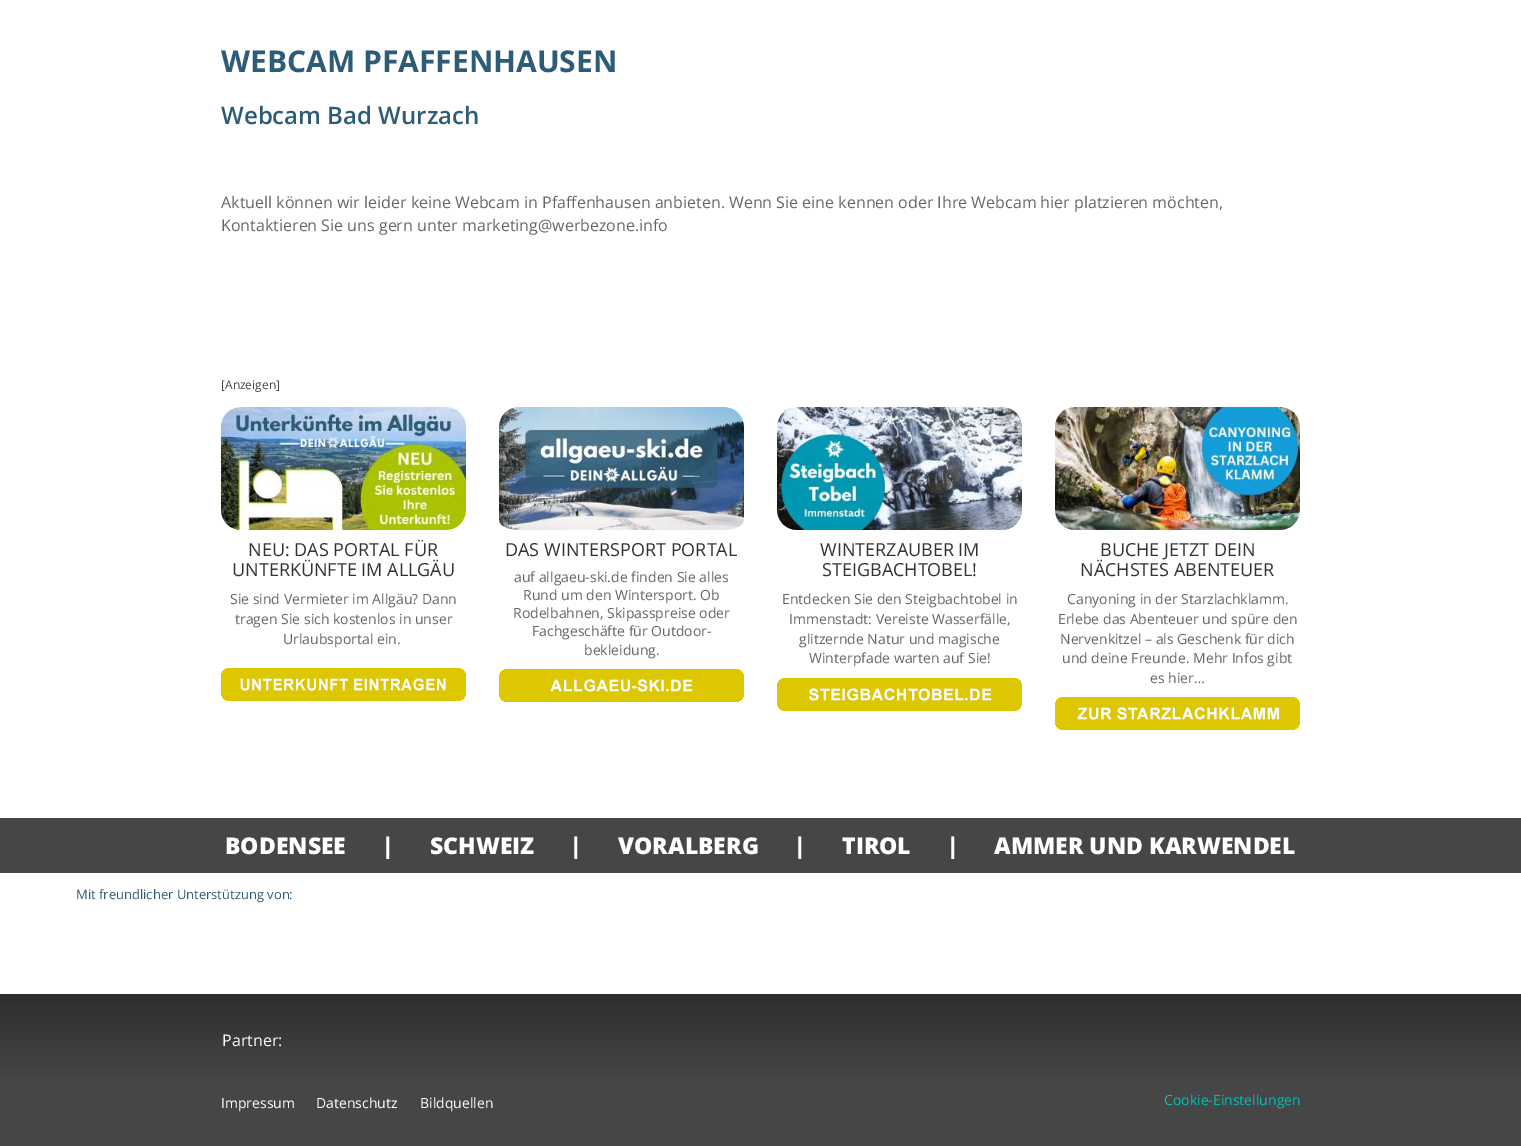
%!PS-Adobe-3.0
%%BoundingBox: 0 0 1521 1146
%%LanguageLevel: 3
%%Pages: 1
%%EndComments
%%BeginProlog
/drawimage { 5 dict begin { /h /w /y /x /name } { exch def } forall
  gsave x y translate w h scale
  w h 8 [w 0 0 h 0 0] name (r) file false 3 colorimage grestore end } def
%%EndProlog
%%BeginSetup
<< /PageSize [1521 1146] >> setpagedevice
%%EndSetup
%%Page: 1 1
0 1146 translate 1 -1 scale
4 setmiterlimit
1 setgray
0 0 1521 1146 rectfill
(images/1.raw) 221 407 245 123 drawimage
(images/2.raw) 221 668 245 33 drawimage
(images/3.raw) 499 407 245 123 drawimage
(images/4.raw) 499 669 245 33 drawimage
(images/5.raw) 777 407 245 123 drawimage
(images/6.raw) 777 678 245 33 drawimage
(images/7.raw) 1055 407 245 123 drawimage
(images/8.raw) 1055 697 245 33 drawimage
0.275 setgray
0 818 1521 55 rectfill
gsave newpath 0 994 moveto 1521 994 lineto 1521 1078 lineto 0 1078 lineto closepath clip newpath
<< /ShadingType 2 /ColorSpace /DeviceRGB /Coords [761 994 761 1078] /Extend [true true] /Function << /FunctionType 2 /Domain [0 1] /C0 [0.176 0.176 0.176] /C1 [0.275 0.275 0.275] /N 1 >> >> shfill grestore
0 1078 1521 68 rectfill
/OpenSans-Bold [30 0 0 -30 0 0] selectfont
0.18 0.361 0.463 setrgbcolor
221 72 moveto (WEBCAM PFAFFENHAUSEN) show
/OpenSans-SemiBold [24 0 0 -24 0 0] selectfont
221 124 moveto (Webcam Bad Wurzach) show
/OpenSans-Regular [16 0 0 -16 0 0] selectfont
0.4 setgray
221 208 moveto (Aktuell können wir leider keine Webcam in Pfaffenhausen anbieten. Wenn Sie eine kennen oder Ihre Webcam hier platzieren möchten,) show
221 231 moveto (Kontaktieren Sie uns gern unter marketing@werbezone.info) show
/OpenSans-Regular [12 0 0 -12 0 0] selectfont
0.275 setgray
221 389 moveto ([Anzeigen]) show
/OpenSans-Regular [18 0 0 -18 0 0] selectfont
0.2 setgray
248 556 moveto (NEU: DAS PORTAL FÜR) show
232 576 moveto (UNTERKÜNFTE IM ALLGÄU) show
/OpenSans-Regular [14 0 0 -14 0 0] selectfont
0.4 setgray
230 604 moveto (Sie sind Vermieter im Allgäu? Dann) show
235 624 moveto (tragen Sie sich kostenlos in unser) show
283 644 moveto (Urlaubsportal ein.) show
/OpenSans-Regular [18 0 0 -18 0 0] selectfont
0.2 setgray
505 556 moveto (DAS WINTERSPORT PORTAL) show
/OpenSans-Regular [14 0 0 -14 0 0] selectfont
0.4 setgray
514 582 moveto (auf allgaeu-ski.de finden Sie alles) show
523 600 moveto (Rund um den Wintersport. Ob) show
513 618 moveto (Rodelbahnen, Skipasspreise oder) show
532 636 moveto (Fachgeschäfte für Outdoor-) show
584 655 moveto (bekleidung.) show
/OpenSans-Regular [18 0 0 -18 0 0] selectfont
0.2 setgray
820 556 moveto (WINTERZAUBER IM) show
822 576 moveto (STEIGBACHTOBEL!) show
/OpenSans-Regular [14 0 0 -14 0 0] selectfont
0.4 setgray
782 604 moveto (Entdecken Sie den Steigbachtobel in) show
789 624 moveto (Immenstadt: Vereiste Wasserfälle,) show
799 644 moveto (glitzernde Natur und magische) show
809 663 moveto (Winterpfade warten auf Sie!) show
/OpenSans-Regular [18 0 0 -18 0 0] selectfont
0.2 setgray
1100 556 moveto (BUCHE JETZT DEIN) show
1080 576 moveto (NÄCHSTES ABENTEUER) show
/OpenSans-Regular [14 0 0 -14 0 0] selectfont
0.4 setgray
1067 604 moveto (Canyoning in der Starzlachklamm.) show
1058 624 moveto (Erlebe das Abenteuer und spüre den) show
1060 644 moveto (Nervenkitzel – als Geschenk für dich) show
1062 663 moveto (und deine Freunde. Mehr Infos gibt) show
1150 683 moveto (es hier…) show
/OpenSans-ExtraBold [23 0 0 -23 0 0] selectfont
1 setgray
225 854 moveto (BODENSEE) show
382 854 moveto (|) show
430 854 moveto (SCHWEIZ) show
570 854 moveto (|) show
618 854 moveto (VORALBERG) show
794 854 moveto (|) show
842 854 moveto (TIROL) show
947 854 moveto (|) show
994 854 moveto (AMMER UND KARWENDEL) show
/OpenSans-Regular [13 0 0 -13 0 0] selectfont
0.18 0.361 0.463 setrgbcolor
76 899 moveto (Mit freundlicher Unterstützung von:) show
/OpenSans-Regular [16 0 0 -16 0 0] selectfont
1 setgray
222 1046 moveto (Partner:) show
/OpenSans-Regular [14 0 0 -14 0 0] selectfont
221 1108 moveto (Impressum) show
316 1108 moveto (Datenschutz) show
420 1108 moveto (Bildquellen) show
0 0.757 0.706 setrgbcolor
1164 1105 moveto (Cookie-Einstellungen) show
showpage
%%EOF
